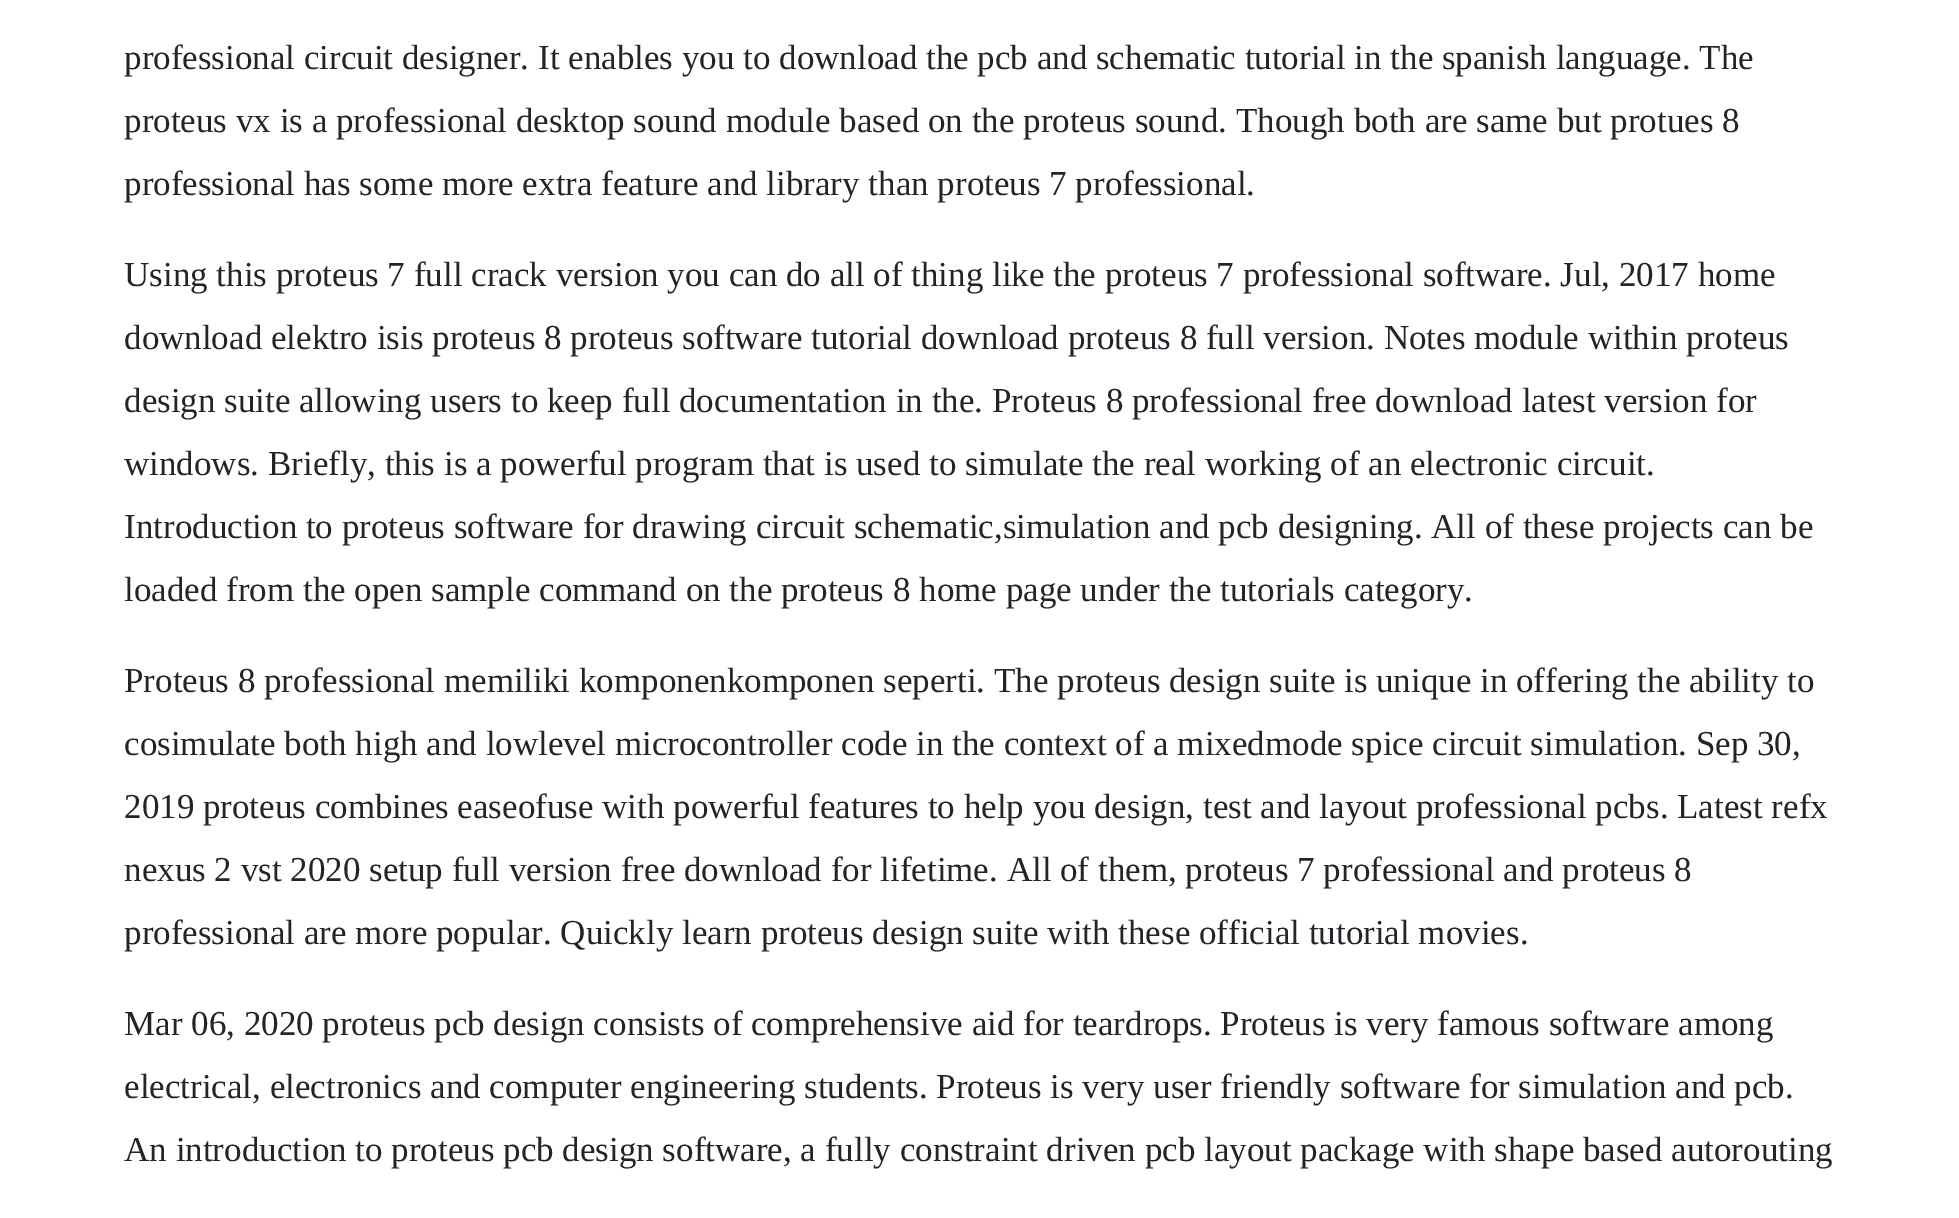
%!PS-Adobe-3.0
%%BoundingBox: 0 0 1959 1218
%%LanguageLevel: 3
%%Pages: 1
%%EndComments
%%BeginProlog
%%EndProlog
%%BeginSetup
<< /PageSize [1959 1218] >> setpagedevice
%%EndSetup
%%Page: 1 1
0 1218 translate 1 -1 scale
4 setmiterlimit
1 setgray
0 0 1959 1218 rectfill
/LiberationSerif-Regular [35 0 0 -35 0 0] selectfont
0.129 0.145 0.161 setrgbcolor
124 69 moveto (professional circuit designer. It enables you to download the pcb and schematic tutorial in the spanish language. The) show
124 132 moveto (proteus vx is a professional desktop sound module based on the proteus sound. Though both are same but protues 8) show
124 195 moveto (professional has some more extra feature and library than proteus 7 professional.) show
124 286 moveto (Using this proteus 7 full crack version you can do all of thing like the proteus 7 professional software. Jul, 2017 home) show
124 349 moveto (download elektro isis proteus 8 proteus software tutorial download proteus 8 full version. Notes module within proteus) show
124 412 moveto (design suite allowing users to keep full documentation in the. Proteus 8 professional free download latest version for) show
124 475 moveto (windows. Briefly, this is a powerful program that is used to simulate the real working of an electronic circuit.) show
124 538 moveto (Introduction to proteus software for drawing circuit schematic,simulation and pcb designing. All of these projects can be) show
124 601 moveto (loaded from the open sample command on the proteus 8 home page under the tutorials category.) show
124 692 moveto (Proteus 8 professional memiliki komponenkomponen seperti. The proteus design suite is unique in offering the ability to) show
124 755 moveto (cosimulate both high and lowlevel microcontroller code in the context of a mixedmode spice circuit simulation. Sep 30,) show
124 818 moveto (2019 proteus combines easeofuse with powerful features to help you design, test and layout professional pcbs. Latest refx) show
124 881 moveto (nexus 2 vst 2020 setup full version free download for lifetime. All of them, proteus 7 professional and proteus 8) show
124 944 moveto (professional are more popular. Quickly learn proteus design suite with these official tutorial movies.) show
124 1035 moveto (Mar 06, 2020 proteus pcb design consists of comprehensive aid for teardrops. Proteus is very famous software among) show
124 1098 moveto (electrical, electronics and computer engineering students. Proteus is very user friendly software for simulation and pcb.) show
124 1161 moveto (An introduction to proteus pcb design software, a fully constraint driven pcb layout package with shape based autorouting) show
showpage
%%EOF
